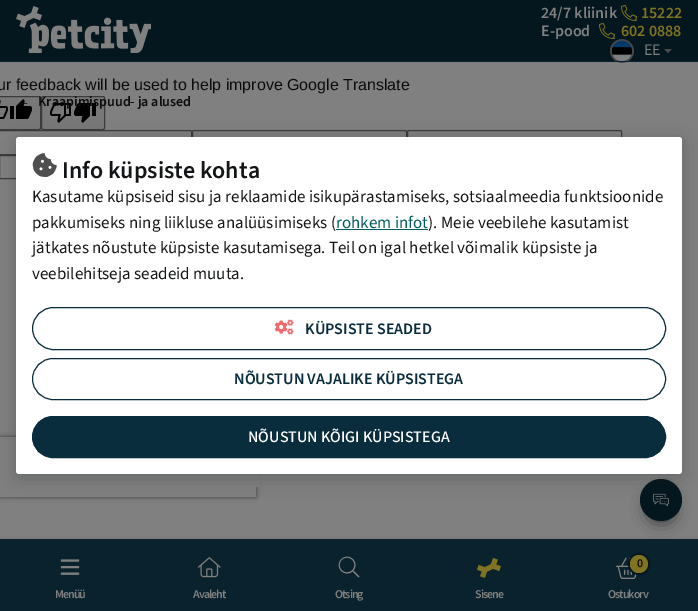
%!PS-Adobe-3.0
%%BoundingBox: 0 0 698 611
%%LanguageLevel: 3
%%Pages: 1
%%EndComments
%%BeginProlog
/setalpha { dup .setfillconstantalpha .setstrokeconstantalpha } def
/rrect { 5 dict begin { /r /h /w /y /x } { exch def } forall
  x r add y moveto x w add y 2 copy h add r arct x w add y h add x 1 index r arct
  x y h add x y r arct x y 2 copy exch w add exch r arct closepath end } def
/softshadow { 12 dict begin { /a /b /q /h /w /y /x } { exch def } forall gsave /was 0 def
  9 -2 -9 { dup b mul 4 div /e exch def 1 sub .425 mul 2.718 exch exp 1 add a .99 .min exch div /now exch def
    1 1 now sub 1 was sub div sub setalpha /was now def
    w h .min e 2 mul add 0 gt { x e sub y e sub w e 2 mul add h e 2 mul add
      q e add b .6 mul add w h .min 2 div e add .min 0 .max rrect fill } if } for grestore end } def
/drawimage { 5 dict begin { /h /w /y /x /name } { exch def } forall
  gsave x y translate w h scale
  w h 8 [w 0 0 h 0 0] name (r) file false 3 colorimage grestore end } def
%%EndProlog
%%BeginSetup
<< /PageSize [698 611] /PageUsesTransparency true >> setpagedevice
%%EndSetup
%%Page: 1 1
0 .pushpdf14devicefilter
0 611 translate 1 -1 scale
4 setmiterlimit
0.502 setgray
0 0 698 611 rectfill
0.02 0.09 0.118 setrgbcolor
0 0 698 61 rectfill
(images/1.raw) 621 5 16 16 drawimage
(images/1.raw) 599 23 16 16 drawimage
(images/2.raw) 610 39 24 24 drawimage
0.29 setgray
newpath 664 49 moveto 672 49 lineto 668 53 lineto closepath fill
gsave
newpath 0 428 moveto 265 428 lineto 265 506 lineto 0 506 lineto closepath 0 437 moveto 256 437 lineto 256 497 lineto 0 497 lineto closepath eoclip newpath
0.251 setgray
0 437 256 60 0 2.5 1 softshadow
grestore
0.502 setgray
256 474 4 13 rectfill
0.153 setgray
0 539 698 72 0 2 0.2 softshadow
0.039 0.133 0.176 setrgbcolor
0 539 698 72 rectfill
0.157 setgray
648 495 26 26 13 8 1 softshadow
0.02 0.09 0.118 setrgbcolor
newpath 661 500 21 0 360 arc closepath fill
(images/3.raw) 653 493 16 14 drawimage
0.039 0.133 0.176 setrgbcolor
0 61 698 1 rectfill
(images/4.raw) 16 6 135 47 drawimage
(images/5.raw) 60 559 20 16 drawimage
(images/6.raw) 198 557 23 21 drawimage
(images/7.raw) 338 556 22 22 drawimage
(images/8.raw) 477 557 24 21 drawimage
(images/9.raw) 616 557 21 22 drawimage
0.02 0.09 0.118 setrgbcolor
2 setlinewidth
newpath 639 564 10 0 360 arc closepath stroke
0.502 0.451 0.133 setrgbcolor
newpath 639 564 9 0 360 arc closepath fill
0.471 setgray
-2.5 96.5 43 33 1.5 rrect gsave fill grestore
0.231 setgray
1 setlinewidth
stroke
(images/10.raw) 0 100 8 19 drawimage
(images/11.raw) 10 99 22 20 drawimage
0.471 setgray
41.5 96.5 63 33 1.5 rrect gsave fill grestore
0.231 setgray
stroke
(images/12.raw) 50 103 21 20 drawimage
(images/13.raw) 74 103 22 20 drawimage
-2.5 130.5 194 24 1.5 rrect stroke
192.5 130.5 214 24 1.5 rrect stroke
407.5 130.5 214 24 1.5 rrect stroke
-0.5 155.5 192 23 rectstroke
0.075 0.082 0.086 setrgbcolor
16 141 666 337 3 10 0.25 softshadow
1 setgray
16 137 666 337 3 rrect fill
(images/14.raw) 32 153 25 24 drawimage
0 0.361 0.369 setrgbcolor
336 229 92 1 rectfill
0.035 0.176 0.235 setrgbcolor
32.5 307.5 633 42 21 rrect stroke
(images/15.raw) 274 319 20 16 drawimage
32.5 358.5 633 41 20.5 rrect stroke
32.5 416.5 633 41 20.5 rrect gsave fill grestore
stroke
/SourceSans3-SemiBold [16 0 0 -16 0 0] selectfont
0.502 setgray
541 18 moveto (24/7 kliinik) show
0.502 0.451 0.133 setrgbcolor
641 18 moveto (15222) show
0.502 setgray
541 36 moveto (E-pood) show
0.502 0.451 0.133 setrgbcolor
621 36 moveto (602 0888) show
/SourceSans3-Regular [16 0 0 -16 0 0] selectfont
0.502 setgray
644 55 moveto (EE) show
/LiberationSans-Bold [14 0 0 -14 0 0] selectfont
0.039 0.043 0.043 setrgbcolor
16 106 moveto (←) show
/SourceSans3-SemiBold [14 0 0 -14 0 0] selectfont
38 106 moveto (Kraapimispuud- ja alused) show
/SourceSans3-SemiBold [12 0 0 -12 0 0] selectfont
0.502 setgray
55 598 moveto -1 0 (Menüü) ashow
193 598 moveto -1 0 (Avaleht) ashow
335 598 moveto -1 0 (Otsing) ashow
475 598 moveto -1 0 (Sisene) ashow
0.039 0.043 0.043 setrgbcolor
637 567 moveto -1 0 (0) ashow
0.502 setgray
608 598 moveto -1 0 (Ostukorv) ashow
/LiberationSans-Regular [16 0 0 -16 0 0] selectfont
0.039 0.043 0.043 setrgbcolor
-3 90 moveto (ur feedback will be used to help improve Google Translate) show
/SourceSans3-SemiBold [24 0 0 -24 0 0] selectfont
0.075 0.082 0.086 setrgbcolor
62 178 moveto (Info küpsiste kohta) show
/SourceSans3-Regular [17 0 0 -17 0 0] selectfont
32 202 moveto (Kasutame küpsiseid sisu ja reklaamide isikupärastamiseks, sotsiaalmeedia funktsioonide) show
32 228 moveto (pakkumiseks ning liikluse analüüsimiseks \() show
0 0.361 0.369 setrgbcolor
336 228 moveto (rohkem infot) show
0.075 0.082 0.086 setrgbcolor
428 228 moveto (\). Meie veebilehe kasutamist) show
32 253 moveto (jätkates nõustute küpsiste kasutamisega. Teil on igal hetkel võimalik küpsiste ja) show
32 279 moveto (veebilehitseja seadeid muuta.) show
/SourceSans3-SemiBold [16 0 0 -16 0 0] selectfont
0.035 0.176 0.235 setrgbcolor
305 334 moveto (KÜPSISTE SEADED) show
234 384 moveto (NÕUSTUN VAJALIKE KÜPSISTEGA) show
/SourceSans3-Medium [16 0 0 -16 0 0] selectfont
1 setgray
248 442 moveto (NÕUSTUN KÕIGI KÜPSISTEGA) show
.poppdf14devicefilter showpage
%%EOF
